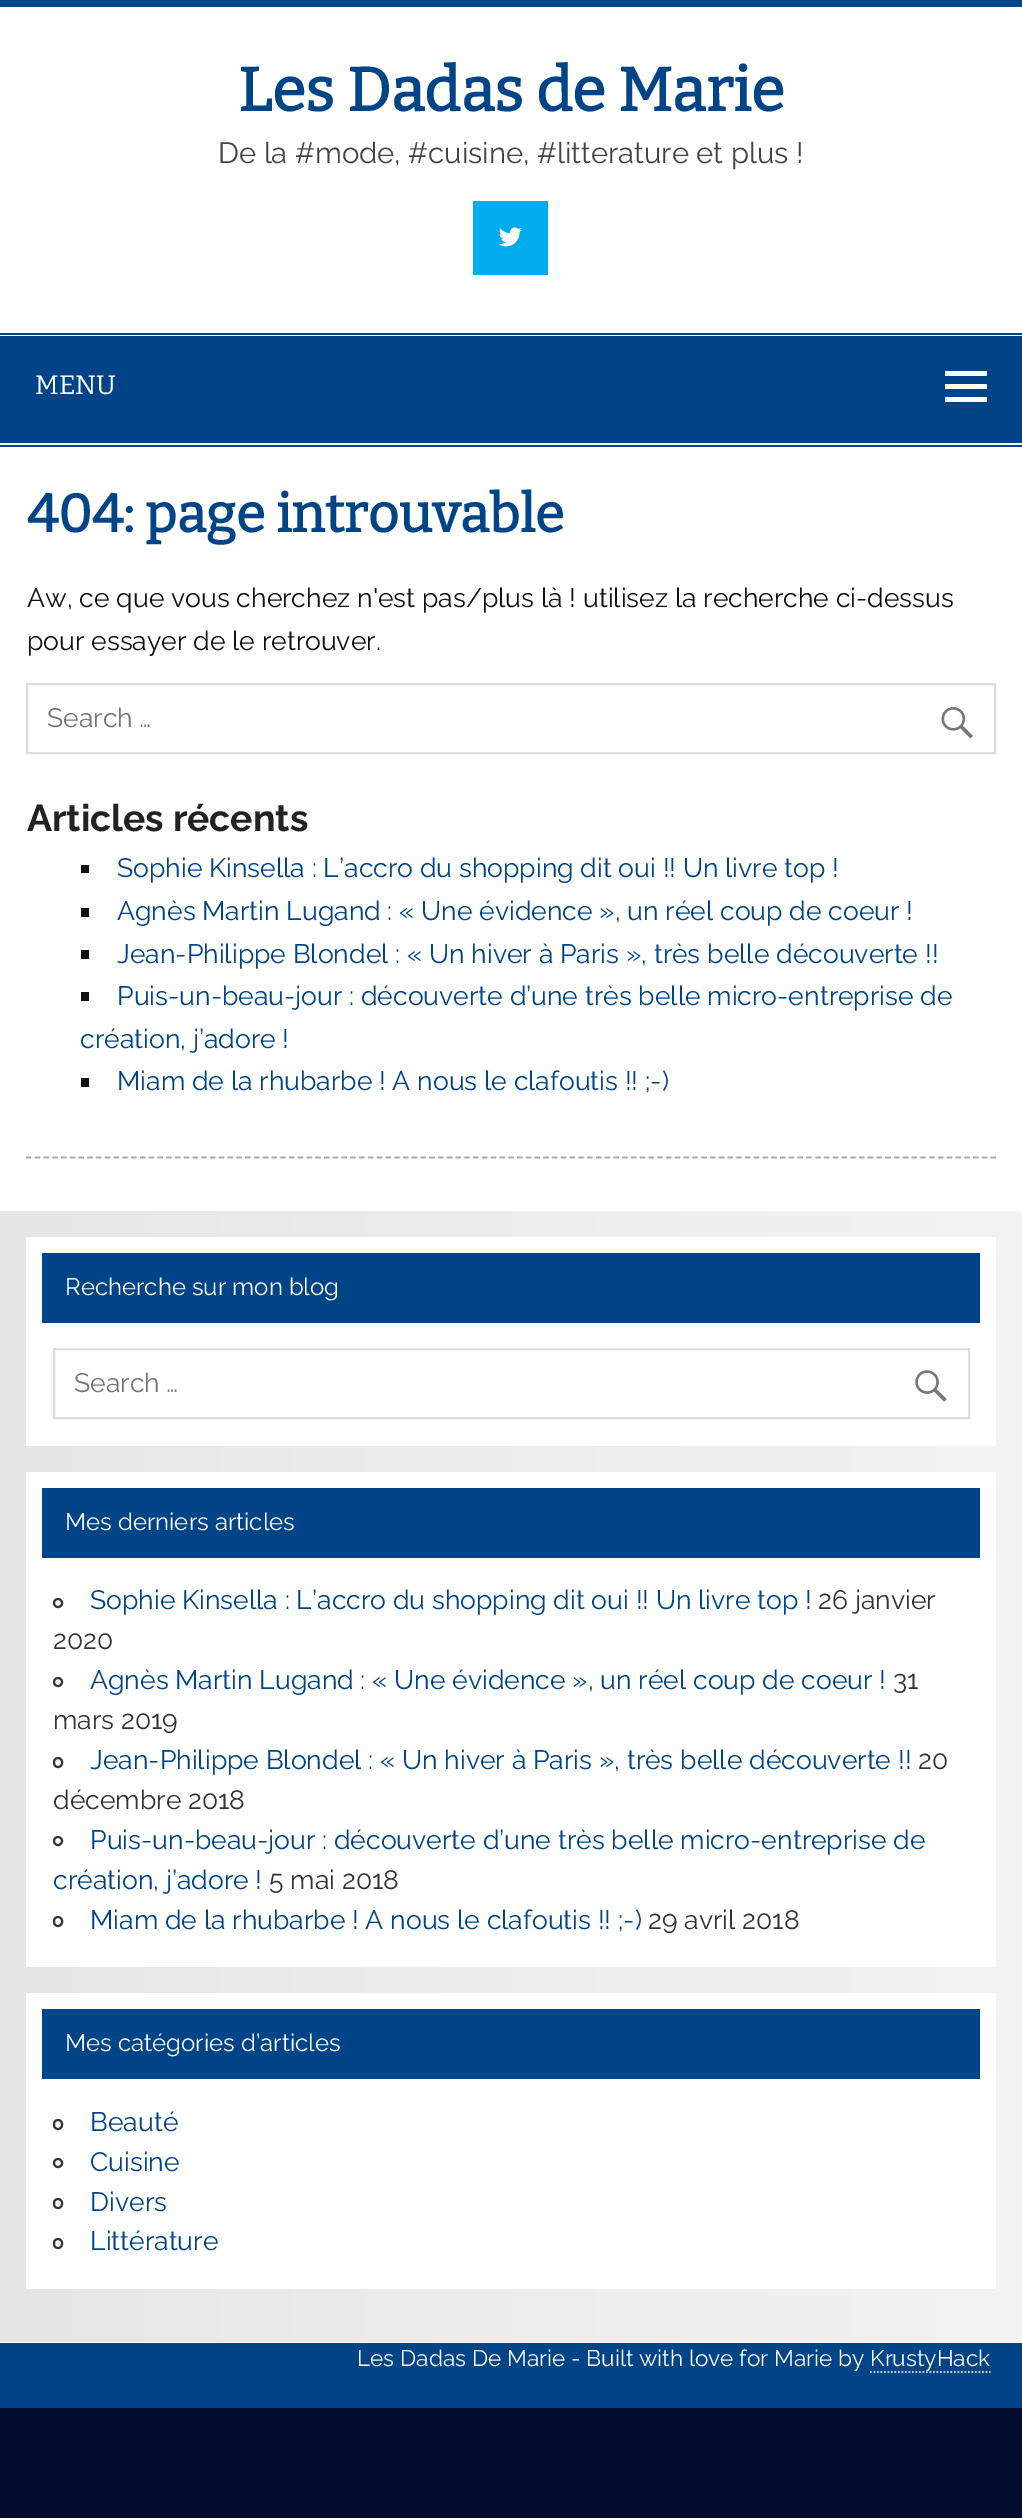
%!PS-Adobe-3.0
%%BoundingBox: 0 0 1022 2518
%%LanguageLevel: 3
%%Pages: 1
%%EndComments
%%BeginProlog
/rrect { 5 dict begin { /r /h /w /y /x } { exch def } forall
  x r add y moveto x w add y 2 copy h add r arct x w add y h add x 1 index r arct
  x y h add x y r arct x y 2 copy exch w add exch r arct closepath end } def
/drawimage { 5 dict begin { /h /w /y /x /name } { exch def } forall
  gsave x y translate w h scale
  w h 8 [w 0 0 h 0 0] name (r) file false 3 colorimage grestore end } def
%%EndProlog
%%BeginSetup
<< /PageSize [1022 2518] >> setpagedevice
%%EndSetup
%%Page: 1 1
0 2518 translate 1 -1 scale
4 setmiterlimit
0.004 0.043 0.176 setrgbcolor
0 0 1022 2518 rectfill
1 setgray
0 7 1022 2336 rectfill
0 0.267 0.533 setrgbcolor
0 0 1022 7 rectfill
0 0.675 0.929 setrgbcolor
473 201 75 74 rectfill
(images/1.raw) 498 227 24 20 drawimage
0 0.267 0.533 setrgbcolor
0 333 1022 2 rectfill
0 445 1022 2 rectfill
0 336 1022 107 rectfill
1 setgray
newpath 945 402 moveto 945 397 lineto 987 397 lineto 987 402 lineto closepath 945 371 moveto 987 371 lineto 987 376 lineto 945 376 lineto closepath 945 389 moveto 945 384 lineto 987 384 lineto 987 389 lineto closepath fill
0.667 setgray
1.8 setlinewidth
[5.25 3.52] 0 setdash
newpath 26 1157.5 moveto 996 1157.5 lineto stroke
0.867 setgray
2 setlinewidth
[] 0 setdash
27 684 968 69 rectstroke
(images/2.raw) 941 707 32 32 drawimage
0.067 setgray
81 865 8 8 rectfill
81 908 8 9 rectfill
81 950 8 9 rectfill
81 992 8 9 rectfill
81 1078 8 9 rectfill
gsave newpath 0 1211 moveto 1022 1211 lineto 1022 2342 lineto 0 2342 lineto closepath clip newpath
<< /ShadingType 2 /ColorSpace /DeviceRGB /Coords [0 1776 1022 1776] /Extend [true true] /Function << /FunctionType 2 /Domain [0 1] /C0 [0.902 0.902 0.902] /C1 [0.953 0.953 0.953] /N 1 >> >> shfill grestore
1 setgray
26 1237 970 209 rectfill
0 0.267 0.533 setrgbcolor
42 1253 938 70 rectfill
0.867 setgray
54 1349 915 69 rectstroke
(images/3.raw) 915 1370 32 32 drawimage
1 setgray
26 1472 970 495 rectfill
0 0.267 0.533 setrgbcolor
42 1488 938 70 rectfill
0.2 setgray
newpath 58 1603 4 0 360 arc closepath stroke
newpath 58 1682 4 0 360 arc closepath stroke
54 1758 8 9 4 rrect stroke
newpath 58 1841 4 0 360 arc closepath stroke
54 1917 8 9 4 rrect stroke
1 setgray
26 1993 970 296 rectfill
0 0.267 0.533 setrgbcolor
42 2009 938 70 rectfill
0.2 setgray
54 2120 8 9 4 rrect stroke
newpath 58 2163 4 0 360 arc closepath stroke
54 2199 8 9 4 rrect stroke
54 2239 8 9 4 rrect stroke
0 0.267 0.533 setrgbcolor
0 2343 1022 65 rectfill
0.8 setgray
1.8 setlinewidth
[1.75 1.75] 0 setdash
newpath 870 2372 moveto 990.5 2372 lineto stroke
/Bitter-Bold [61.25 0 0 -61.25 0 0] selectfont
0 0.267 0.533 setrgbcolor
238 111 moveto (Les Dadas de Marie) show
/Raleway-Regular [29.25 0 0 -29.25 0 0] selectfont
0.267 setgray
218 163 moveto (De la #mode, #cuisine, #litterature et plus !) show
/Bitter-Thin [26.6 0 0 -26.6 0 0] selectfont
1 setgray
35 394 moveto (MENU) show
/Bitter-Bold [53.25 0 0 -53.25 0 0] selectfont
0 0.267 0.533 setrgbcolor
27 532 moveto (404: page introuvable) show
/Raleway-Regular [26.6 0 0 -26.6 0 0] selectfont
0.067 setgray
27 607 moveto (Aw, ce que vous cherchez n'est pas/plus là ! utilisez la recherche ci-dessus) show
27 650 moveto (pour essayer de le retrouver.) show
0.459 setgray
47 727 moveto (Search …) show
/Raleway-Bold [37.25 0 0 -37.25 0 0] selectfont
0.133 setgray
27 831 moveto (Articles récents) show
/Raleway-Regular [26.6 0 0 -26.6 0 0] selectfont
0 0.267 0.533 setrgbcolor
117 877 moveto (Sophie Kinsella : L’accro du shopping dit oui !! Un livre top !) show
117 920 moveto (Agnès Martin Lugand : « Une évidence », un réel coup de coeur !) show
117 963 moveto (Jean-Philippe Blondel : « Un hiver à Paris », très belle découverte !!) show
117 1005 moveto (Puis-un-beau-jour : découverte d’une très belle micro-entreprise de) show
80 1048 moveto (création, j’adore !) show
117 1090 moveto (Miam de la rhubarbe ! A nous le clafoutis !! ;-\)) show
/Raleway-Regular [24 0 0 -24 0 0] selectfont
1 setgray
65 1295 moveto (Recherche sur mon blog) show
/Raleway-Regular [26.6 0 0 -26.6 0 0] selectfont
0.459 setgray
74 1392 moveto (Search …) show
/Raleway-Regular [24 0 0 -24 0 0] selectfont
1 setgray
65 1530 moveto (Mes derniers articles) show
/Raleway-Regular [26.6 0 0 -26.6 0 0] selectfont
0 0.267 0.533 setrgbcolor
90 1609 moveto (Sophie Kinsella : L’accro du shopping dit oui !! Un livre top !) show
0.2 setgray
818 1609 moveto (26 janvier) show
53 1649 moveto (2020) show
0 0.267 0.533 setrgbcolor
90 1689 moveto (Agnès Martin Lugand : « Une évidence », un réel coup de coeur !) show
0.2 setgray
893 1689 moveto (31) show
53 1729 moveto (mars 2019) show
0 0.267 0.533 setrgbcolor
90 1769 moveto (Jean-Philippe Blondel : « Un hiver à Paris », très belle découverte !!) show
0.2 setgray
918 1769 moveto (20) show
53 1809 moveto (décembre 2018) show
0 0.267 0.533 setrgbcolor
90 1849 moveto (Puis-un-beau-jour : découverte d’une très belle micro-entreprise de) show
53 1889 moveto (création, j’adore !) show
0.2 setgray
269 1889 moveto (5 mai 2018) show
0 0.267 0.533 setrgbcolor
90 1929 moveto (Miam de la rhubarbe ! A nous le clafoutis !! ;-\)) show
0.2 setgray
648 1929 moveto (29 avril 2018) show
/Raleway-Regular [24 0 0 -24 0 0] selectfont
1 setgray
65 2051 moveto (Mes catégories d’articles) show
/Raleway-Regular [26.6 0 0 -26.6 0 0] selectfont
0 0.267 0.533 setrgbcolor
90 2131 moveto (Beauté) show
90 2171 moveto (Cuisine) show
90 2211 moveto (Divers) show
90 2250 moveto (Littérature) show
/Raleway-Regular [22.6 0 0 -22.6 0 0] selectfont
1 setgray
357 2366 moveto (Les Dadas De Marie - Built with love for Marie by) show
870 2366 moveto (KrustyHack) show
showpage
%%EOF
